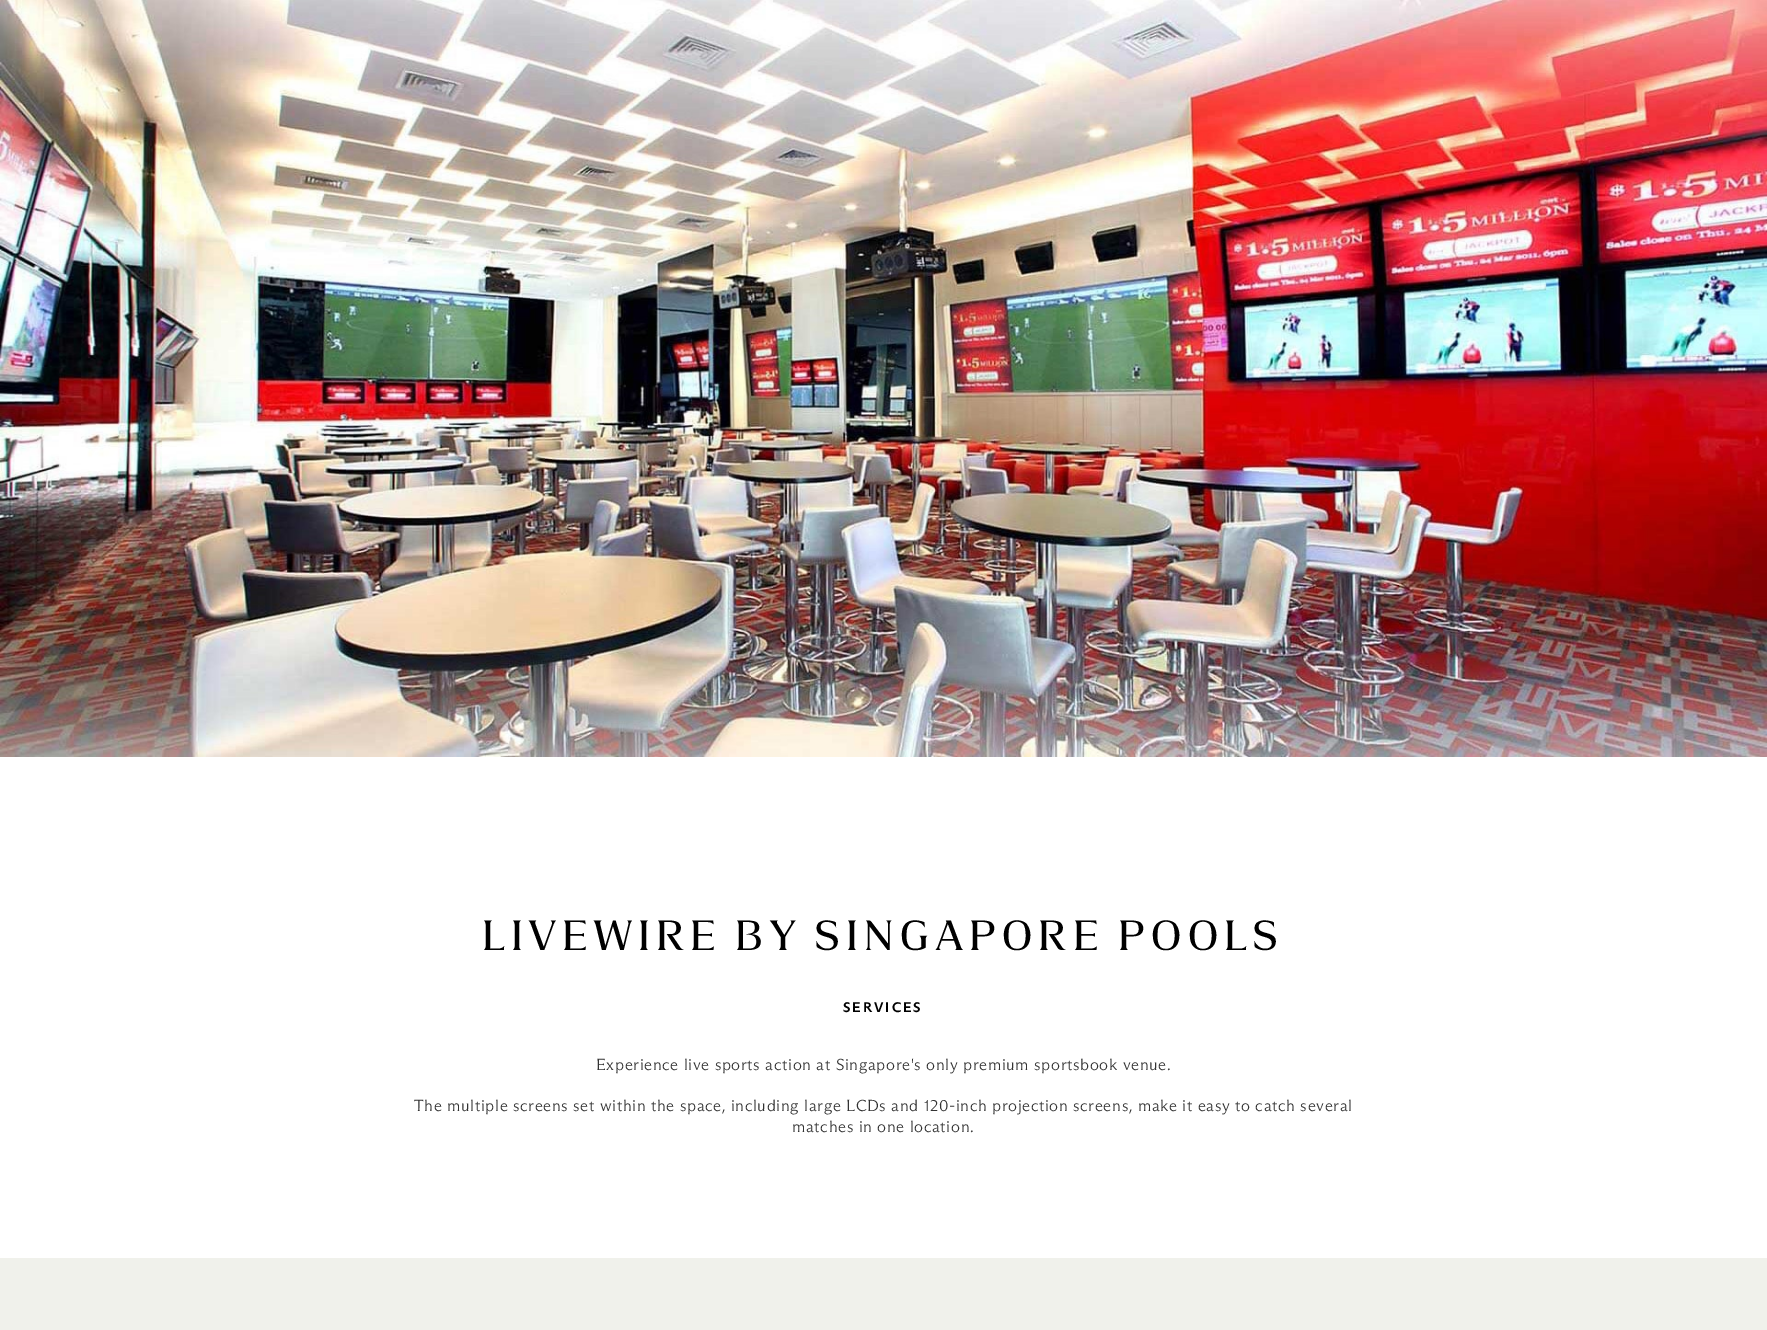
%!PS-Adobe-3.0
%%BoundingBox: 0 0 1767 1330
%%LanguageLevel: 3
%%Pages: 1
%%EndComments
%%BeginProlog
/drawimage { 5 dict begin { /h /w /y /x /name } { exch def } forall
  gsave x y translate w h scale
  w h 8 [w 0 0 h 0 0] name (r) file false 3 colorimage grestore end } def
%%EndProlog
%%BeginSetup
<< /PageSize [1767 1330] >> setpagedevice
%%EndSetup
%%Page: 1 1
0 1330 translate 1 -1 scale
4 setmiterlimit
1 setgray
0 0 1767 1330 rectfill
(images/1.raw) 0 0 1767 757 drawimage
0.941 0.945 0.922 setrgbcolor
0 1258 1767 72 rectfill
/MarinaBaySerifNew-Regular [40 0 0 -40 0 0] selectfont
0 setgray
482 950 moveto 6.4 0 (LIVEWIRE BY SINGAPORE POOLS) ashow
/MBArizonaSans-Bold [14 0 0 -14 0 0] selectfont
843 1012 moveto 2 0 (SERVICES) ashow
/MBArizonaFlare-Light [16 0 0 -16 0 0] selectfont
0.2 setgray
596 1070 moveto 0.64 0 (Experience live sports action at Singapore's only premium sportsbook venue.) ashow
414 1111 moveto 0.64 0 (The multiple screens set within the space, including large LCDs and 120-inch projection screens, make it easy to catch several) ashow
792 1132 moveto 0.64 0 (matches in one location.) ashow
showpage
%%EOF
